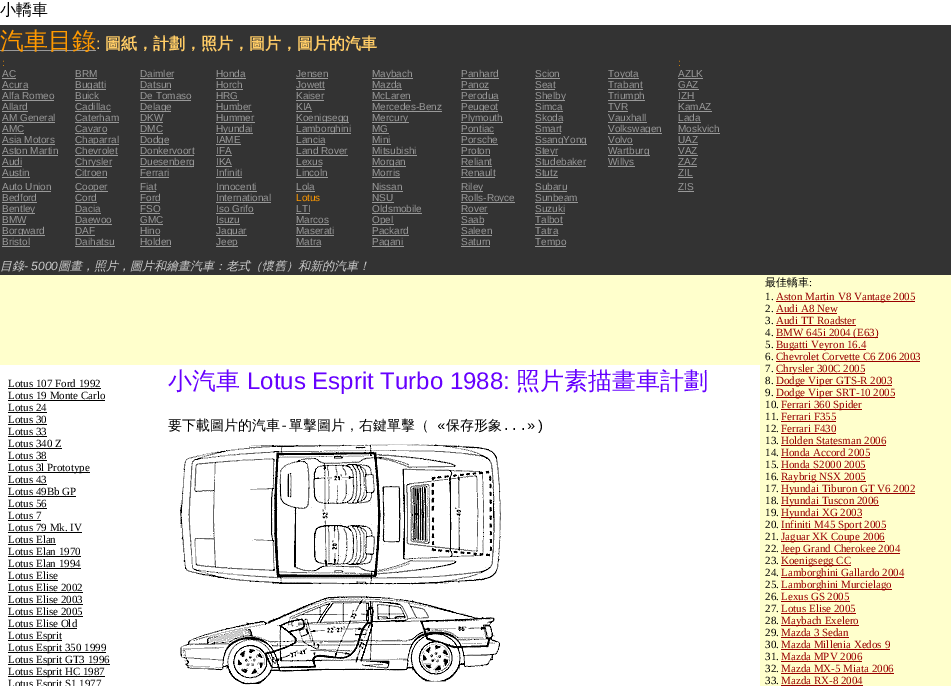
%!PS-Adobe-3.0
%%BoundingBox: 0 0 951 686
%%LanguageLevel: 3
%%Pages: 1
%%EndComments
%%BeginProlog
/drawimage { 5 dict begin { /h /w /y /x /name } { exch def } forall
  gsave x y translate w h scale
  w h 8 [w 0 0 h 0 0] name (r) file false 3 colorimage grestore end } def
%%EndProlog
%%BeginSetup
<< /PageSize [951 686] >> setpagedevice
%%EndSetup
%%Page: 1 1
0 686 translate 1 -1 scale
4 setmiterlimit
1 setgray
0 0 951 686 rectfill
0.2 setgray
0 25 951 250 rectfill
0.6 setgray
0 50 96 1 rectfill
2 78 14 1 rectfill
75 78 22 1 rectfill
140 78 34 1 rectfill
216 78 30 1 rectfill
296 78 32 1 rectfill
372 78 41 1 rectfill
461 78 38 1 rectfill
535 78 25 1 rectfill
608 78 31 1 rectfill
678 78 25 1 rectfill
2 89 26 1 rectfill
75 89 31 1 rectfill
140 89 31 1 rectfill
216 89 27 1 rectfill
296 89 29 1 rectfill
372 89 30 1 rectfill
461 89 28 1 rectfill
535 89 20 1 rectfill
608 89 35 1 rectfill
678 89 21 1 rectfill
2 100 52 1 rectfill
75 100 25 1 rectfill
140 100 51 1 rectfill
216 100 23 1 rectfill
296 100 28 1 rectfill
372 100 39 1 rectfill
461 100 38 1 rectfill
535 100 30 1 rectfill
608 100 37 1 rectfill
678 100 17 1 rectfill
2 111 26 1 rectfill
75 111 36 1 rectfill
140 111 31 1 rectfill
216 111 36 1 rectfill
296 111 16 1 rectfill
372 111 70 1 rectfill
461 111 37 1 rectfill
535 111 28 1 rectfill
608 111 20 1 rectfill
678 111 34 1 rectfill
2 122 53 1 rectfill
75 122 44 1 rectfill
140 122 23 1 rectfill
216 122 39 1 rectfill
296 122 53 1 rectfill
372 122 37 1 rectfill
461 122 42 1 rectfill
535 122 28 1 rectfill
608 122 39 1 rectfill
678 122 23 1 rectfill
2 133 22 1 rectfill
75 133 32 1 rectfill
140 133 23 1 rectfill
216 133 37 1 rectfill
296 133 55 1 rectfill
372 133 17 1 rectfill
461 133 33 1 rectfill
535 133 26 1 rectfill
608 133 54 1 rectfill
678 133 42 1 rectfill
2 144 53 1 rectfill
75 144 44 1 rectfill
140 144 29 1 rectfill
216 144 25 1 rectfill
296 144 29 1 rectfill
372 144 19 1 rectfill
461 144 37 1 rectfill
535 144 52 1 rectfill
608 144 25 1 rectfill
678 144 20 1 rectfill
2 155 56 1 rectfill
75 155 43 1 rectfill
140 155 54 1 rectfill
216 155 16 1 rectfill
296 155 52 1 rectfill
372 155 45 1 rectfill
461 155 29 1 rectfill
535 155 23 1 rectfill
608 155 42 1 rectfill
678 155 20 1 rectfill
2 166 20 1 rectfill
75 166 37 1 rectfill
140 166 54 1 rectfill
216 166 16 1 rectfill
296 166 26 1 rectfill
372 166 34 1 rectfill
461 166 31 1 rectfill
535 166 51 1 rectfill
608 166 27 1 rectfill
678 166 19 1 rectfill
2 177 28 1 rectfill
75 177 32 1 rectfill
140 177 29 1 rectfill
216 177 26 1 rectfill
296 177 32 1 rectfill
372 177 28 1 rectfill
461 177 34 1 rectfill
535 177 23 1 rectfill
678 177 15 1 rectfill
2 191 49 1 rectfill
75 191 33 1 rectfill
140 191 16 1 rectfill
216 191 41 1 rectfill
296 191 19 1 rectfill
372 191 31 1 rectfill
461 191 22 1 rectfill
535 191 32 1 rectfill
678 191 16 1 rectfill
2 202 35 1 rectfill
75 202 22 1 rectfill
140 202 20 1 rectfill
216 202 55 1 rectfill
372 202 22 1 rectfill
461 202 54 1 rectfill
535 202 43 1 rectfill
2 213 33 1 rectfill
75 213 26 1 rectfill
140 213 20 1 rectfill
216 213 38 1 rectfill
296 213 14 1 rectfill
372 213 50 1 rectfill
461 213 27 1 rectfill
535 213 30 1 rectfill
2 224 24 1 rectfill
75 224 37 1 rectfill
140 224 23 1 rectfill
216 224 24 1 rectfill
296 224 33 1 rectfill
372 224 22 1 rectfill
461 224 23 1 rectfill
535 224 28 1 rectfill
2 235 43 1 rectfill
75 235 20 1 rectfill
140 235 20 1 rectfill
216 235 31 1 rectfill
296 235 38 1 rectfill
372 235 37 1 rectfill
461 235 31 1 rectfill
535 235 23 1 rectfill
2 246 28 1 rectfill
75 246 40 1 rectfill
140 246 31 1 rectfill
216 246 22 1 rectfill
296 246 25 1 rectfill
372 246 32 1 rectfill
461 246 29 1 rectfill
535 246 31 1 rectfill
0 setgray
8 388 93 1 rectfill
8 400 97 1 rectfill
8 412 39 1 rectfill
8 424 39 1 rectfill
8 436 39 1 rectfill
8 448 54 1 rectfill
8 460 39 1 rectfill
8 472 82 1 rectfill
8 484 39 1 rectfill
8 496 68 1 rectfill
8 508 39 1 rectfill
8 520 33 1 rectfill
8 532 74 1 rectfill
8 544 48 1 rectfill
8 556 73 1 rectfill
8 568 73 1 rectfill
8 580 50 1 rectfill
8 592 75 1 rectfill
8 604 75 1 rectfill
8 616 75 1 rectfill
8 628 69 1 rectfill
8 640 54 1 rectfill
8 652 98 1 rectfill
8 664 102 1 rectfill
8 676 97 1 rectfill
(images/1.raw) 180 444 321 241 drawimage
1 1 0.8 setrgbcolor
0 275 760 90 rectfill
760 275 191 411 rectfill
0.6 0 0 setrgbcolor
776 301 139 1 rectfill
776 313 61 1 rectfill
776 325 80 1 rectfill
776 337 102 1 rectfill
776 349 90 1 rectfill
776 361 144 1 rectfill
776 373 89 1 rectfill
776 385 116 1 rectfill
776 397 119 1 rectfill
781 409 81 1 rectfill
781 421 55 1 rectfill
781 433 55 1 rectfill
781 445 105 1 rectfill
781 457 89 1 rectfill
781 469 85 1 rectfill
781 481 85 1 rectfill
781 493 134 1 rectfill
781 505 98 1 rectfill
781 517 81 1 rectfill
781 529 105 1 rectfill
781 541 104 1 rectfill
781 553 119 1 rectfill
781 565 70 1 rectfill
781 577 123 1 rectfill
781 589 111 1 rectfill
781 601 69 1 rectfill
781 613 75 1 rectfill
781 625 78 1 rectfill
781 637 68 1 rectfill
781 649 109 1 rectfill
781 661 81 1 rectfill
781 673 113 1 rectfill
781 685 82 1 rectfill
/WenQuanYiZenHei-Medium [16 0 0 -16 0 0] selectfont
0 setgray
0 15 moveto (小轎車) show
/WenQuanYiZenHei-Medium [24 0 0 -24 0 0] selectfont
1 0.6 0 setrgbcolor
0 49 moveto (汽車目錄) show
/LiberationSans-Regular [16 0 0 -16 0 0] selectfont
1 0.8 0.4 setrgbcolor
96 49 moveto (:) show
/WenQuanYiZenHei-Bold [16 0 0 -16 0 0] selectfont
105 49 moveto (圖紙，計劃，照片，圖片，圖片的汽車) show
/LiberationSans-Regular [10 0 0 -10 0 0] selectfont
1 0.6 0 setrgbcolor
2 66 moveto (:) show
678 66 moveto (:) show
0.6 setgray
2 77 moveto (AC) show
75 77 moveto (BRM) show
140 77 moveto (Daimler) show
216 77 moveto (Honda) show
296 77 moveto (Jensen) show
372 77 moveto (Maybach) show
461 77 moveto (Panhard) show
535 77 moveto (Scion) show
608 77 moveto (Toyota) show
678 77 moveto (AZLK) show
2 88 moveto (Acura) show
75 88 moveto (Bugatti) show
140 88 moveto (Datsun) show
216 88 moveto (Horch) show
296 88 moveto (Jowett) show
372 88 moveto (Mazda) show
461 88 moveto (Panoz) show
535 88 moveto (Seat) show
608 88 moveto (Trabant) show
678 88 moveto (GAZ) show
2 99 moveto (Alfa Romeo) show
75 99 moveto (Buick) show
140 99 moveto (De Tomaso) show
216 99 moveto (HRG) show
296 99 moveto (Kaiser) show
372 99 moveto (McLaren) show
461 99 moveto (Perodua) show
535 99 moveto (Shelby) show
608 99 moveto (Triumph) show
678 99 moveto (IZH) show
2 110 moveto (Allard) show
75 110 moveto (Cadillac) show
140 110 moveto (Delage) show
216 110 moveto (Humber) show
296 110 moveto (KIA) show
372 110 moveto (Mercedes-Benz) show
461 110 moveto (Peugeot) show
535 110 moveto (Simca) show
608 110 moveto (TVR) show
678 110 moveto (KamAZ) show
2 121 moveto (AM General) show
75 121 moveto (Caterham) show
140 121 moveto (DKW) show
216 121 moveto (Hummer) show
296 121 moveto (Koenigsegg) show
372 121 moveto (Mercury) show
461 121 moveto (Plymouth) show
535 121 moveto (Skoda) show
608 121 moveto (Vauxhall) show
678 121 moveto (Lada) show
2 132 moveto (AMC) show
75 132 moveto (Cavaro) show
140 132 moveto (DMC) show
216 132 moveto (Hyundai) show
296 132 moveto (Lamborghini) show
372 132 moveto (MG) show
461 132 moveto (Pontiac) show
535 132 moveto (Smart) show
608 132 moveto (Volkswagen) show
678 132 moveto (Moskvich) show
2 143 moveto (Asia Motors) show
75 143 moveto (Chaparral) show
140 143 moveto (Dodge) show
216 143 moveto (IAME) show
296 143 moveto (Lancia) show
372 143 moveto (Mini) show
461 143 moveto (Porsche) show
535 143 moveto (SsangYong) show
608 143 moveto (Volvo) show
678 143 moveto (UAZ) show
2 154 moveto (Aston Martin) show
75 154 moveto (Chevrolet) show
140 154 moveto (Donkervoort) show
216 154 moveto (IFA) show
296 154 moveto (Land Rover) show
372 154 moveto (Mitsubishi) show
461 154 moveto (Proton) show
535 154 moveto (Steyr) show
608 154 moveto (Wartburg) show
678 154 moveto (VAZ) show
2 165 moveto (Audi) show
75 165 moveto (Chrysler) show
140 165 moveto (Duesenberg) show
216 165 moveto (IKA) show
296 165 moveto (Lexus) show
372 165 moveto (Morgan) show
461 165 moveto (Reliant) show
535 165 moveto (Studebaker) show
608 165 moveto (Willys) show
678 165 moveto (ZAZ) show
2 176 moveto (Austin) show
75 176 moveto (Citroen) show
140 176 moveto (Ferrari) show
216 176 moveto (Infiniti) show
296 176 moveto (Lincoln) show
372 176 moveto (Morris) show
461 176 moveto (Renault) show
535 176 moveto (Stutz) show
678 176 moveto (ZIL) show
2 190 moveto (Auto Union) show
75 190 moveto (Cooper) show
140 190 moveto (Fiat) show
216 190 moveto (Innocenti) show
296 190 moveto (Lola) show
372 190 moveto (Nissan) show
461 190 moveto (Riley) show
535 190 moveto (Subaru) show
678 190 moveto (ZIS) show
2 201 moveto (Bedford) show
75 201 moveto (Cord) show
140 201 moveto (Ford) show
216 201 moveto (International) show
1 0.6 0 setrgbcolor
296 201 moveto (Lotus) show
0.6 setgray
372 201 moveto (NSU) show
461 201 moveto (Rolls-Royce) show
535 201 moveto (Sunbeam) show
2 212 moveto (Bentley) show
75 212 moveto (Dacia) show
140 212 moveto (FSO) show
216 212 moveto (Iso Grifo) show
296 212 moveto (LTI) show
372 212 moveto (Oldsmobile) show
461 212 moveto (Rover) show
535 212 moveto (Suzuki) show
2 223 moveto (BMW) show
75 223 moveto (Daewoo) show
140 223 moveto (GMC) show
216 223 moveto (Isuzu) show
296 223 moveto (Marcos) show
372 223 moveto (Opel) show
461 223 moveto (Saab) show
535 223 moveto (Talbot) show
2 234 moveto (Borgward) show
75 234 moveto (DAF) show
140 234 moveto (Hino) show
216 234 moveto (Jaguar) show
296 234 moveto (Maserati) show
372 234 moveto (Packard) show
461 234 moveto (Saleen) show
535 234 moveto (Tatra) show
2 245 moveto (Bristol) show
75 245 moveto (Daihatsu) show
140 245 moveto (Holden) show
216 245 moveto (Jeep) show
296 245 moveto (Matra) show
372 245 moveto (Pagani) show
461 245 moveto (Saturn) show
535 245 moveto (Tempo) show
/WenQuanYiZenHei-MediumItalic [12 0 0 -12 0 0] selectfont
0.8 setgray
0 270 moveto (目錄) show
/LiberationSans-Italic [12 0 0 -12 0 0] selectfont
24 270 moveto (- 5000) show
/WenQuanYiZenHei-MediumItalic [12 0 0 -12 0 0] selectfont
58 270 moveto (圖畫，照片，圖片和繪畫汽車：老式（懷舊）和新的汽車！) show
/LiberationSerif-Regular [11 0 0 -11 0 0] selectfont
0 setgray
8 387 moveto (Lotus 107 Ford 1992) show
8 399 moveto (Lotus 19 Monte Carlo) show
8 411 moveto (Lotus 24) show
8 423 moveto (Lotus 30) show
8 435 moveto (Lotus 33) show
8 447 moveto (Lotus 340 Z) show
8 459 moveto (Lotus 38) show
8 471 moveto (Lotus 3l Prototype) show
8 483 moveto (Lotus 43) show
8 495 moveto (Lotus 49Bb GP) show
8 507 moveto (Lotus 56) show
8 519 moveto (Lotus 7) show
8 531 moveto (Lotus 79 Mk. IV) show
8 543 moveto (Lotus Elan) show
8 555 moveto (Lotus Elan 1970) show
8 567 moveto (Lotus Elan 1994) show
8 579 moveto (Lotus Elise) show
8 591 moveto (Lotus Elise 2002) show
8 603 moveto (Lotus Elise 2003) show
8 615 moveto (Lotus Elise 2005) show
8 627 moveto (Lotus Elise Old) show
8 639 moveto (Lotus Esprit) show
8 651 moveto (Lotus Esprit 350 1999) show
8 663 moveto (Lotus Esprit GT3 1996) show
8 675 moveto (Lotus Esprit HC 1987) show
8 687 moveto (Lotus Esprit S1 1977) show
/WenQuanYiZenHei-Medium [24 0 0 -24 0 0] selectfont
0.4 0 1 setrgbcolor
168 389 moveto (小汽車) show
/LiberationSans-Regular [24 0 0 -24 0 0] selectfont
247 389 moveto (Lotus Esprit Turbo 1988:) show
/WenQuanYiZenHei-Medium [24 0 0 -24 0 0] selectfont
516 389 moveto (照片素描畫車計劃) show
/WenQuanYiZenHei-Medium [14 0 0 -14 0 0] selectfont
0 setgray
168 430 moveto (要下載圖片的汽車) show
/LiberationMono-Regular [14 0 0 -14 0 0] selectfont
280 430 moveto (-) show
/WenQuanYiZenHei-Medium [14 0 0 -14 0 0] selectfont
289 430 moveto (單擊圖片，右鍵單擊（) show
/LiberationMono-Regular [14 0 0 -14 0 0] selectfont
437 430 moveto («) show
/WenQuanYiZenHei-Medium [14 0 0 -14 0 0] selectfont
446 430 moveto (保存形象) show
/LiberationMono-Regular [14 0 0 -14 0 0] selectfont
502 430 moveto (...»\)) show
/WenQuanYiZenHei-Medium [11 0 0 -11 0 0] selectfont
765 286 moveto (最佳轎車) show
/LiberationSerif-Regular [11 0 0 -11 0 0] selectfont
809 286 moveto (:) show
765 300 moveto (1.) show
0.6 0 0 setrgbcolor
776 300 moveto (Aston Martin V8 Vantage 2005) show
0 setgray
765 312 moveto (2.) show
0.6 0 0 setrgbcolor
776 312 moveto (Audi A8 New) show
0 setgray
765 324 moveto (3.) show
0.6 0 0 setrgbcolor
776 324 moveto (Audi TT Roadster) show
0 setgray
765 336 moveto (4.) show
0.6 0 0 setrgbcolor
776 336 moveto (BMW 645i 2004 \(E63\)) show
0 setgray
765 348 moveto (5.) show
0.6 0 0 setrgbcolor
776 348 moveto (Bugatti Veyron 16.4) show
0 setgray
765 360 moveto (6.) show
0.6 0 0 setrgbcolor
776 360 moveto (Chevrolet Corvette C6 Z06 2003) show
0 setgray
765 372 moveto (7.) show
0.6 0 0 setrgbcolor
776 372 moveto (Chrysler 300C 2005) show
0 setgray
765 384 moveto (8.) show
0.6 0 0 setrgbcolor
776 384 moveto (Dodge Viper GTS-R 2003) show
0 setgray
765 396 moveto (9.) show
0.6 0 0 setrgbcolor
776 396 moveto (Dodge Viper SRT-10 2005) show
0 setgray
765 408 moveto (10.) show
0.6 0 0 setrgbcolor
781 408 moveto (Ferrari 360 Spider) show
0 setgray
765 420 moveto (11.) show
0.6 0 0 setrgbcolor
781 420 moveto (Ferrari F355) show
0 setgray
765 432 moveto (12.) show
0.6 0 0 setrgbcolor
781 432 moveto (Ferrari F430) show
0 setgray
765 444 moveto (13.) show
0.6 0 0 setrgbcolor
781 444 moveto (Holden Statesman 2006) show
0 setgray
765 456 moveto (14.) show
0.6 0 0 setrgbcolor
781 456 moveto (Honda Accord 2005) show
0 setgray
765 468 moveto (15.) show
0.6 0 0 setrgbcolor
781 468 moveto (Honda S2000 2005) show
0 setgray
765 480 moveto (16.) show
0.6 0 0 setrgbcolor
781 480 moveto (Raybrig NSX 2005) show
0 setgray
765 492 moveto (17.) show
0.6 0 0 setrgbcolor
781 492 moveto (Hyundai Tiburon GT V6 2002) show
0 setgray
765 504 moveto (18.) show
0.6 0 0 setrgbcolor
781 504 moveto (Hyundai Tuscon 2006) show
0 setgray
765 516 moveto (19.) show
0.6 0 0 setrgbcolor
781 516 moveto (Hyundai XG 2003) show
0 setgray
765 528 moveto (20.) show
0.6 0 0 setrgbcolor
781 528 moveto (Infiniti M45 Sport 2005) show
0 setgray
765 540 moveto (21.) show
0.6 0 0 setrgbcolor
781 540 moveto (Jaguar XK Coupe 2006) show
0 setgray
765 552 moveto (22.) show
0.6 0 0 setrgbcolor
781 552 moveto (Jeep Grand Cherokee 2004) show
0 setgray
765 564 moveto (23.) show
0.6 0 0 setrgbcolor
781 564 moveto (Koenigsegg CC) show
0 setgray
765 576 moveto (24.) show
0.6 0 0 setrgbcolor
781 576 moveto (Lamborghini Gallardo 2004) show
0 setgray
765 588 moveto (25.) show
0.6 0 0 setrgbcolor
781 588 moveto (Lamborghini Murcielago) show
0 setgray
765 600 moveto (26.) show
0.6 0 0 setrgbcolor
781 600 moveto (Lexus GS 2005) show
0 setgray
765 612 moveto (27.) show
0.6 0 0 setrgbcolor
781 612 moveto (Lotus Elise 2005) show
0 setgray
765 624 moveto (28.) show
0.6 0 0 setrgbcolor
781 624 moveto (Maybach Exelero) show
0 setgray
765 636 moveto (29.) show
0.6 0 0 setrgbcolor
781 636 moveto (Mazda 3 Sedan) show
0 setgray
765 648 moveto (30.) show
0.6 0 0 setrgbcolor
781 648 moveto (Mazda Millenia Xedos 9) show
0 setgray
765 660 moveto (31.) show
0.6 0 0 setrgbcolor
781 660 moveto (Mazda MPV 2006) show
0 setgray
765 672 moveto (32.) show
0.6 0 0 setrgbcolor
781 672 moveto (Mazda MX-5 Miata 2006) show
0 setgray
765 684 moveto (33.) show
0.6 0 0 setrgbcolor
781 684 moveto (Mazda RX-8 2004) show
showpage
%%EOF
